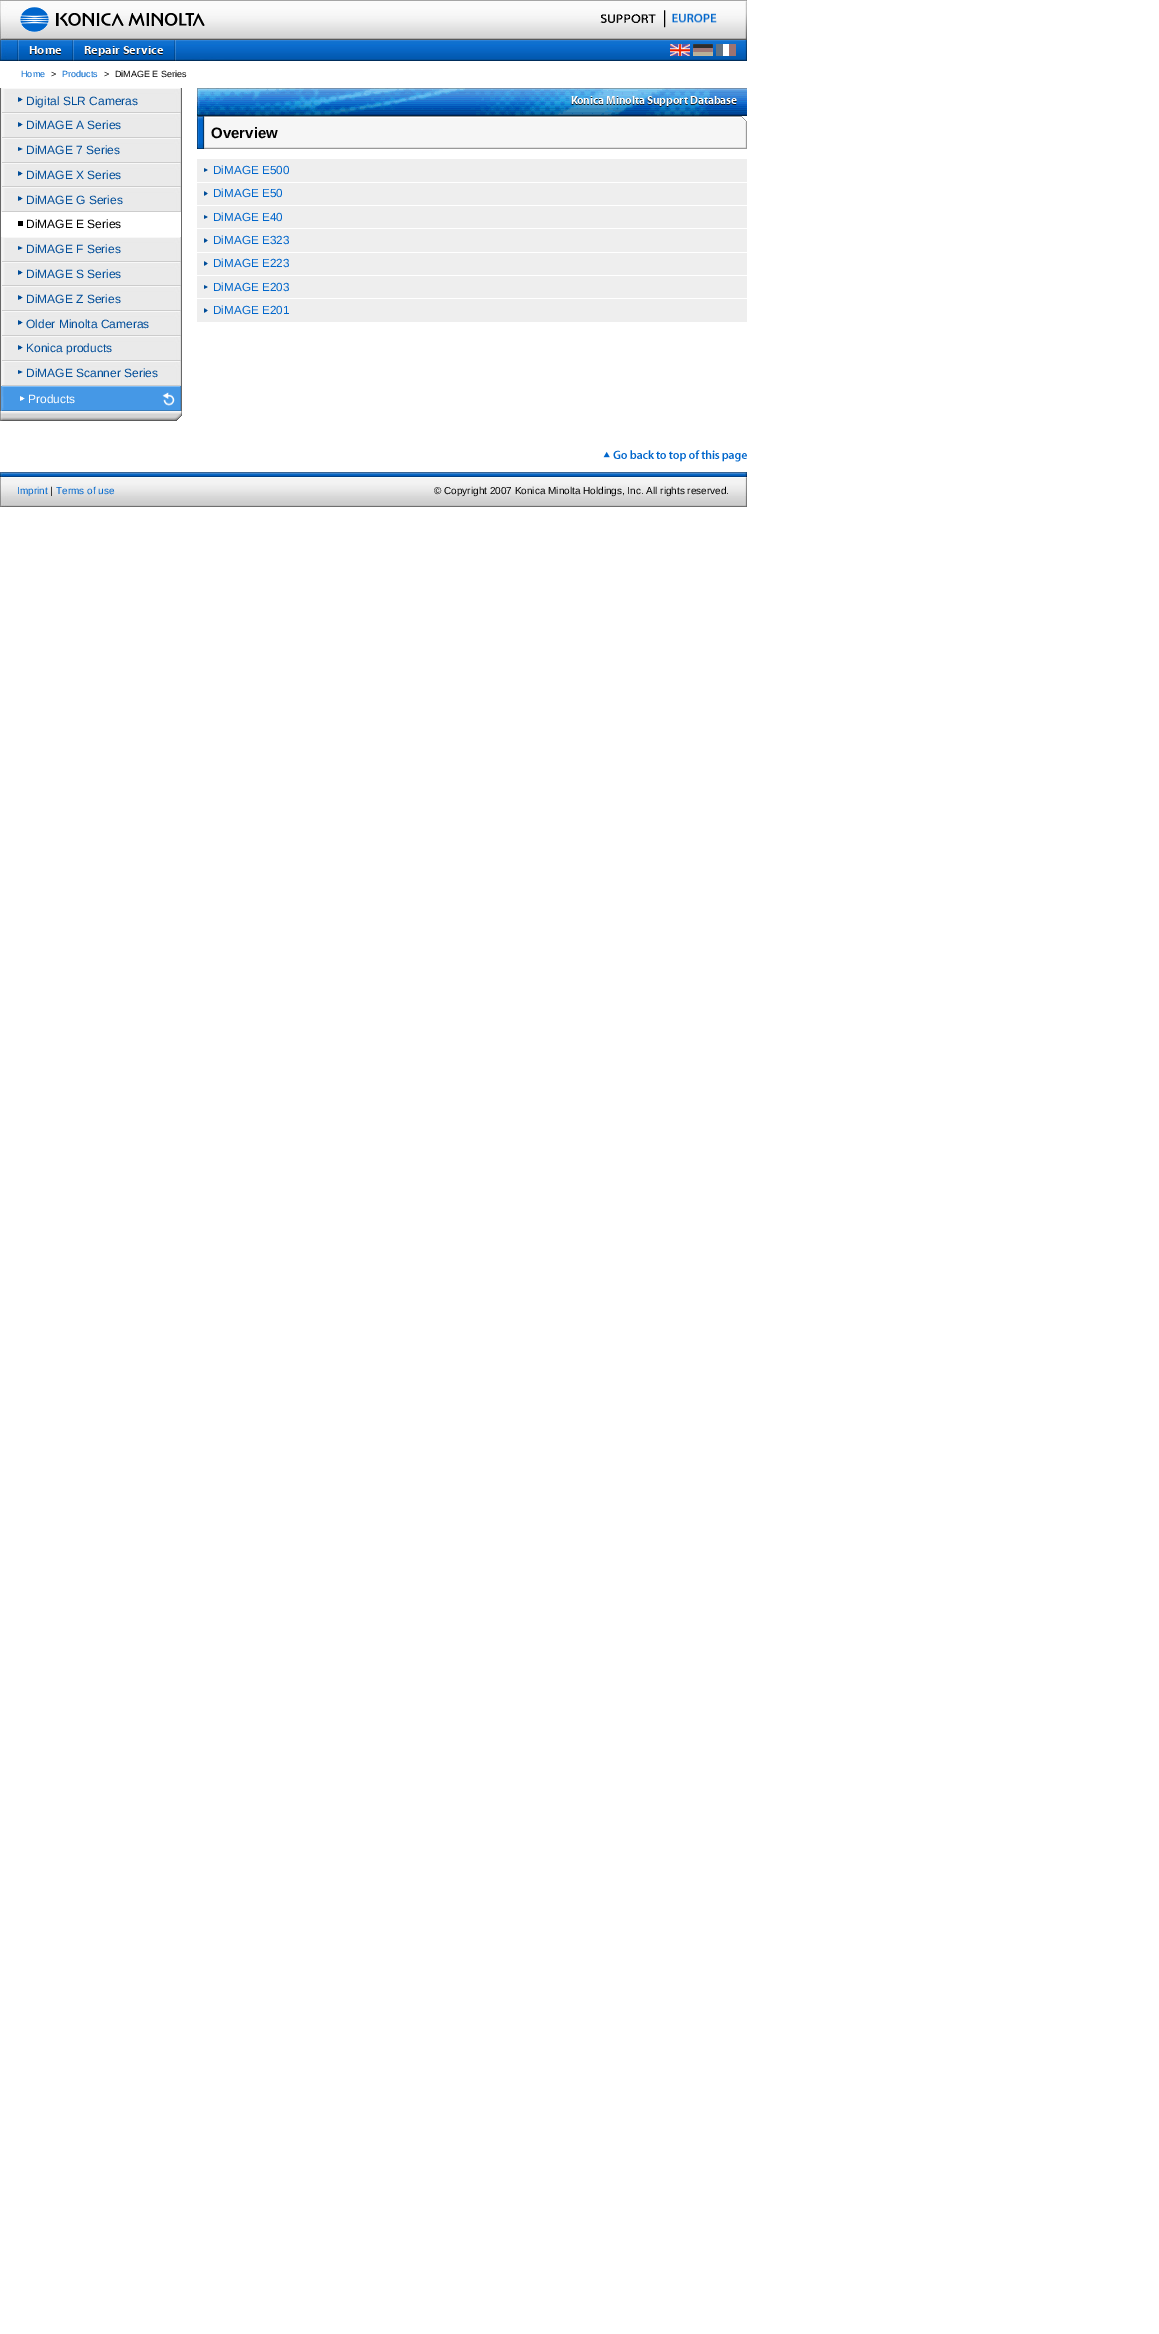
%!PS-Adobe-3.0
%%BoundingBox: 0 0 1159 2334
%%LanguageLevel: 3
%%Pages: 1
%%EndComments
%%BeginProlog
/drawimage { 5 dict begin { /h /w /y /x /name } { exch def } forall
  gsave x y translate w h scale
  w h 8 [w 0 0 h 0 0] name (r) file false 3 colorimage grestore end } def
%%EndProlog
%%BeginSetup
<< /PageSize [1159 2334] >> setpagedevice
%%EndSetup
%%Page: 1 1
0 2334 translate 1 -1 scale
4 setmiterlimit
1 setgray
0 0 1159 2334 rectfill
(images/1.raw) 0 0 747 40 drawimage
(images/2.raw) 20 7 185 25 drawimage
(images/3.raw) 600 14 56 9 drawimage
(images/4.raw) 664 10 2 18 drawimage
(images/5.raw) 672 13 45 10 drawimage
(images/6.raw) 0 40 747 21 drawimage
(images/7.raw) 17 40 2 21 drawimage
(images/8.raw) 19 46 53 15 drawimage
(images/7.raw) 72 40 2 21 drawimage
(images/9.raw) 74 46 100 15 drawimage
(images/7.raw) 174 40 2 21 drawimage
(images/10.raw) 670 44 20 12 drawimage
(images/11.raw) 693 44 20 12 drawimage
(images/12.raw) 716 44 20 12 drawimage
(images/13.raw) 0 411 182 10 drawimage
0.4 setgray
181 88 1 323 rectfill
0 88 1 323 rectfill
(images/14.raw) 2 89 178 23 drawimage
0.973 setgray
1 88 180 1 rectfill
0.867 setgray
180 88 1 25 rectfill
0.8 setgray
1 112 180 1 rectfill
0.941 setgray
1 88 1 25 rectfill
(images/15.raw) 18 97 5 5 drawimage
(images/14.raw) 2 114 178 23 drawimage
0.973 setgray
1 113 180 1 rectfill
0.867 setgray
180 113 1 25 rectfill
0.8 setgray
1 137 180 1 rectfill
0.941 setgray
1 113 1 25 rectfill
(images/15.raw) 18 122 5 5 drawimage
(images/14.raw) 2 139 178 23 drawimage
0.973 setgray
1 138 180 1 rectfill
0.867 setgray
180 138 1 25 rectfill
0.8 setgray
1 162 180 1 rectfill
0.941 setgray
1 138 1 25 rectfill
(images/16.raw) 18 147 5 4 drawimage
(images/17.raw) 2 164 178 22 drawimage
0.973 setgray
1 163 180 1 rectfill
0.867 setgray
180 163 1 24 rectfill
0.8 setgray
1 186 180 1 rectfill
0.941 setgray
1 163 1 24 rectfill
(images/15.raw) 18 171 5 5 drawimage
(images/14.raw) 2 188 178 23 drawimage
0.973 setgray
1 187 180 1 rectfill
0.867 setgray
180 187 1 25 rectfill
0.8 setgray
1 211 180 1 rectfill
0.941 setgray
1 187 1 25 rectfill
(images/15.raw) 18 196 5 5 drawimage
0 setgray
18 221 5 5 rectfill
(images/14.raw) 2 238 178 23 drawimage
0.973 setgray
1 237 180 1 rectfill
0.867 setgray
180 237 1 25 rectfill
0.8 setgray
1 261 180 1 rectfill
0.941 setgray
1 237 1 25 rectfill
(images/16.raw) 18 246 5 4 drawimage
(images/17.raw) 2 263 178 22 drawimage
0.973 setgray
1 262 180 1 rectfill
0.867 setgray
180 262 1 24 rectfill
0.8 setgray
1 285 180 1 rectfill
0.941 setgray
1 262 1 24 rectfill
(images/15.raw) 18 270 5 5 drawimage
(images/14.raw) 2 287 178 23 drawimage
0.973 setgray
1 286 180 1 rectfill
0.867 setgray
180 286 1 25 rectfill
0.8 setgray
1 310 180 1 rectfill
0.941 setgray
1 286 1 25 rectfill
(images/15.raw) 18 295 5 5 drawimage
(images/14.raw) 2 312 178 23 drawimage
0.973 setgray
1 311 180 1 rectfill
0.867 setgray
180 311 1 25 rectfill
0.8 setgray
1 335 180 1 rectfill
0.941 setgray
1 311 1 25 rectfill
(images/15.raw) 18 320 5 5 drawimage
(images/14.raw) 2 337 178 23 drawimage
0.973 setgray
1 336 180 1 rectfill
0.867 setgray
180 336 1 25 rectfill
0.8 setgray
1 360 180 1 rectfill
0.941 setgray
1 336 1 25 rectfill
(images/15.raw) 18 345 5 5 drawimage
(images/14.raw) 2 362 178 23 drawimage
0.973 setgray
1 361 180 1 rectfill
0.867 setgray
180 361 1 25 rectfill
0.8 setgray
1 385 180 1 rectfill
0.941 setgray
1 361 1 25 rectfill
(images/16.raw) 18 370 5 4 drawimage
0.271 0.596 0.902 setrgbcolor
4 387 176 23 rectfill
(images/18.raw) 2 387 2 23 drawimage
0.498 0.737 0.961 setrgbcolor
1 386 180 1 rectfill
0.243 0.529 0.796 setrgbcolor
180 386 1 25 rectfill
0.224 0.49 0.729 setrgbcolor
1 410 180 1 rectfill
0.349 0.635 0.906 setrgbcolor
1 386 1 25 rectfill
(images/19.raw) 20 396 5 5 drawimage
(images/20.raw) 162 392 13 14 drawimage
(images/21.raw) 197 88 550 28 drawimage
(images/22.raw) 205 116 542 33 drawimage
(images/23.raw) 197 116 8 33 drawimage
(images/24.raw) 742 116 5 32 drawimage
0.933 setgray
197 159 550 23 rectfill
(images/25.raw) 204 168 4 4 drawimage
197 183 550 22 rectfill
(images/26.raw) 204 191 4 5 drawimage
197 206 550 22 rectfill
(images/25.raw) 204 215 4 4 drawimage
197 229 550 23 rectfill
(images/26.raw) 204 238 4 5 drawimage
197 253 550 22 rectfill
(images/26.raw) 204 261 4 5 drawimage
197 276 550 22 rectfill
(images/25.raw) 204 285 4 4 drawimage
197 299 550 23 rectfill
(images/26.raw) 204 308 4 5 drawimage
(images/27.raw) 603 450 144 12 drawimage
(images/28.raw) 0 472 747 35 drawimage
/LiberationSans-Regular [9 0 0 -9 0 0] selectfont
0 0.4 0.8 setrgbcolor
21 77 moveto (Home) show
0 setgray
51 77 moveto (>) show
0 0.4 0.8 setrgbcolor
62 77 moveto (Products) show
0 setgray
104 77 moveto (>) show
115 77 moveto (DiMAGE E Series) show
/LiberationSans-Regular [12 0 0 -12 0 0] selectfont
0 0.302 0.6 setrgbcolor
26 105 moveto (Digital SLR Cameras) show
26 129 moveto (DiMAGE A Series) show
26 154 moveto (DiMAGE 7 Series) show
26 179 moveto (DiMAGE X Series) show
26 204 moveto (DiMAGE G Series) show
0 setgray
26 228 moveto (DiMAGE E Series) show
0 0.302 0.6 setrgbcolor
26 253 moveto (DiMAGE F Series) show
26 278 moveto (DiMAGE S Series) show
26 303 moveto (DiMAGE Z Series) show
26 328 moveto (Older Minolta Cameras) show
26 352 moveto (Konica products) show
26 377 moveto (DiMAGE Scanner Series) show
1 setgray
28 403 moveto (Products) show
/LiberationSans-Bold [15 0 0 -15 0 0] selectfont
0 setgray
211 138 moveto (Overview) show
/LiberationSans-Regular [11.75 0 0 -11.75 0 0] selectfont
0 0.4 0.8 setrgbcolor
213 174 moveto (DiMAGE E500) show
213 197 moveto (DiMAGE E50) show
213 221 moveto (DiMAGE E40) show
213 244 moveto (DiMAGE E323) show
213 267 moveto (DiMAGE E223) show
213 291 moveto (DiMAGE E203) show
213 314 moveto (DiMAGE E201) show
/LiberationSans-Regular [10 0 0 -10 0 0] selectfont
17 494 moveto (Imprint) show
0 setgray
50 494 moveto (|) show
0 0.4 0.8 setrgbcolor
56 494 moveto (Terms of use) show
0 setgray
434 494 moveto (© Copyright 2007 Konica Minolta Holdings, Inc. All rights reserved.) show
showpage
%%EOF
